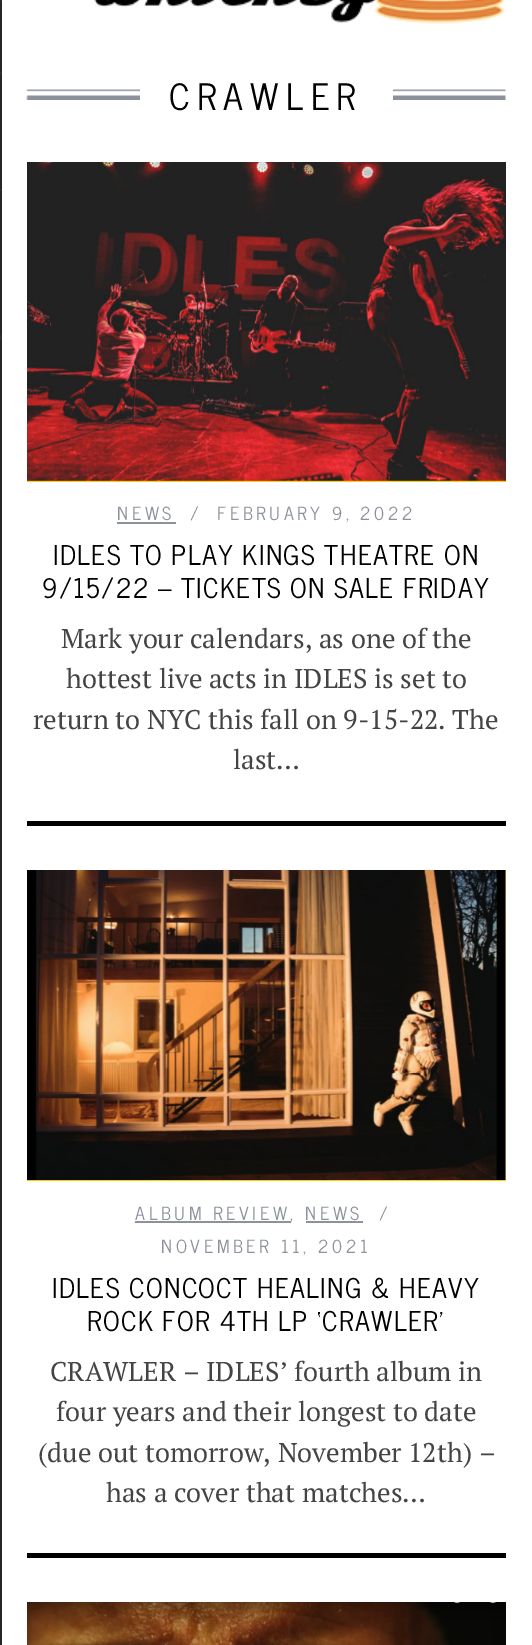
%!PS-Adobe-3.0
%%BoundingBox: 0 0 532 1645
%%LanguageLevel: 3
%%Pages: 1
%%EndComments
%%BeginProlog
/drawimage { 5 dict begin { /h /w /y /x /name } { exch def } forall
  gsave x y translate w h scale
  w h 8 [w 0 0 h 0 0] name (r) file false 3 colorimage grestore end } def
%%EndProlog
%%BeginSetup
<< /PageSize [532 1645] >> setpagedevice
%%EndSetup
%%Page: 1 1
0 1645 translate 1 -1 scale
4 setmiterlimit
1 setgray
0 0 532 1645 rectfill
0.141 0.149 0.157 setrgbcolor
0 0 2 1645 rectfill
0.184 0.18 0.188 setrgbcolor
0 72 2 3 rectfill
0 0 2 1 rectfill
0 335 2 5 rectfill
0 189 2 2 rectfill
(images/1.raw) 94 0 410 24 drawimage
(images/2.raw) 26 89 480 11 drawimage
1 setgray
140 89 253 11 rectfill
0 setgray
27 821 479 5 rectfill
1 0.8 0.051 setrgbcolor
27 480 479 2 rectfill
(images/3.raw) 27 162 479 319 drawimage
0.549 0.569 0.608 setrgbcolor
117 522 59 2 rectfill
0 setgray
27 1553 479 5 rectfill
1 0.8 0.051 setrgbcolor
27 870 479 311 rectfill
(images/4.raw) 27 870 479 310 drawimage
0.549 0.569 0.608 setrgbcolor
135 1221 156 2 rectfill
306 1221 57 2 rectfill
(images/5.raw) 27 1602 479 43 drawimage
/NewsCycle-Regular [36 0 0 -36 0 0] selectfont
0 setgray
169 110 moveto 7.25 0 (CRAWLER) ashow
/NewsCycle-Regular [18 0 0 -18 0 0] selectfont
0.549 0.569 0.608 setrgbcolor
117 520 moveto 3.6 0 (NEWS) ashow
190 520 moveto 3.6 0 (/) ashow
217 520 moveto 3.6 0 (FEBRUARY 9, 2022) ashow
/NewsCycle-Regular [27 0 0 -27 0 0] selectfont
0 setgray
53 565 moveto 1.35 0 (IDLES TO PLAY KINGS THEATRE ON) ashow
42 598 moveto 1.35 0 (9/15/22 – TICKETS ON SALE FRIDAY) ashow
/PTSerif-Regular [27 0 0 -27 0 0] selectfont
0.267 setgray
61 648 moveto (Mark your calendars, as one of the) show
66 688 moveto (hottest live acts in IDLES is set to) show
33 729 moveto (return to NYC this fall on 9-15-22. The) show
233 769 moveto (last…) show
/NewsCycle-Regular [18 0 0 -18 0 0] selectfont
0.549 0.569 0.608 setrgbcolor
135 1220 moveto 3.6 0 (ALBUM REVIEW, NEWS) ashow
379 1220 moveto 3.6 0 (/) ashow
161 1253 moveto 3.6 0 (NOVEMBER 11, 2021) ashow
/NewsCycle-Regular [27 0 0 -27 0 0] selectfont
0 setgray
52 1298 moveto 1.35 0 (IDLES CONCOCT HEALING & HEAVY) ashow
87 1331 moveto 1.35 0 (ROCK FOR 4TH LP ‘CRAWLER’) ashow
/PTSerif-Regular [27 0 0 -27 0 0] selectfont
0.267 setgray
50 1381 moveto (CRAWLER – IDLES’ fourth album in) show
56 1421 moveto (four years and their longest to date) show
38 1462 moveto (\(due out tomorrow, November 12th\) –) show
106 1502 moveto (has a cover that matches…) show
showpage
%%EOF
